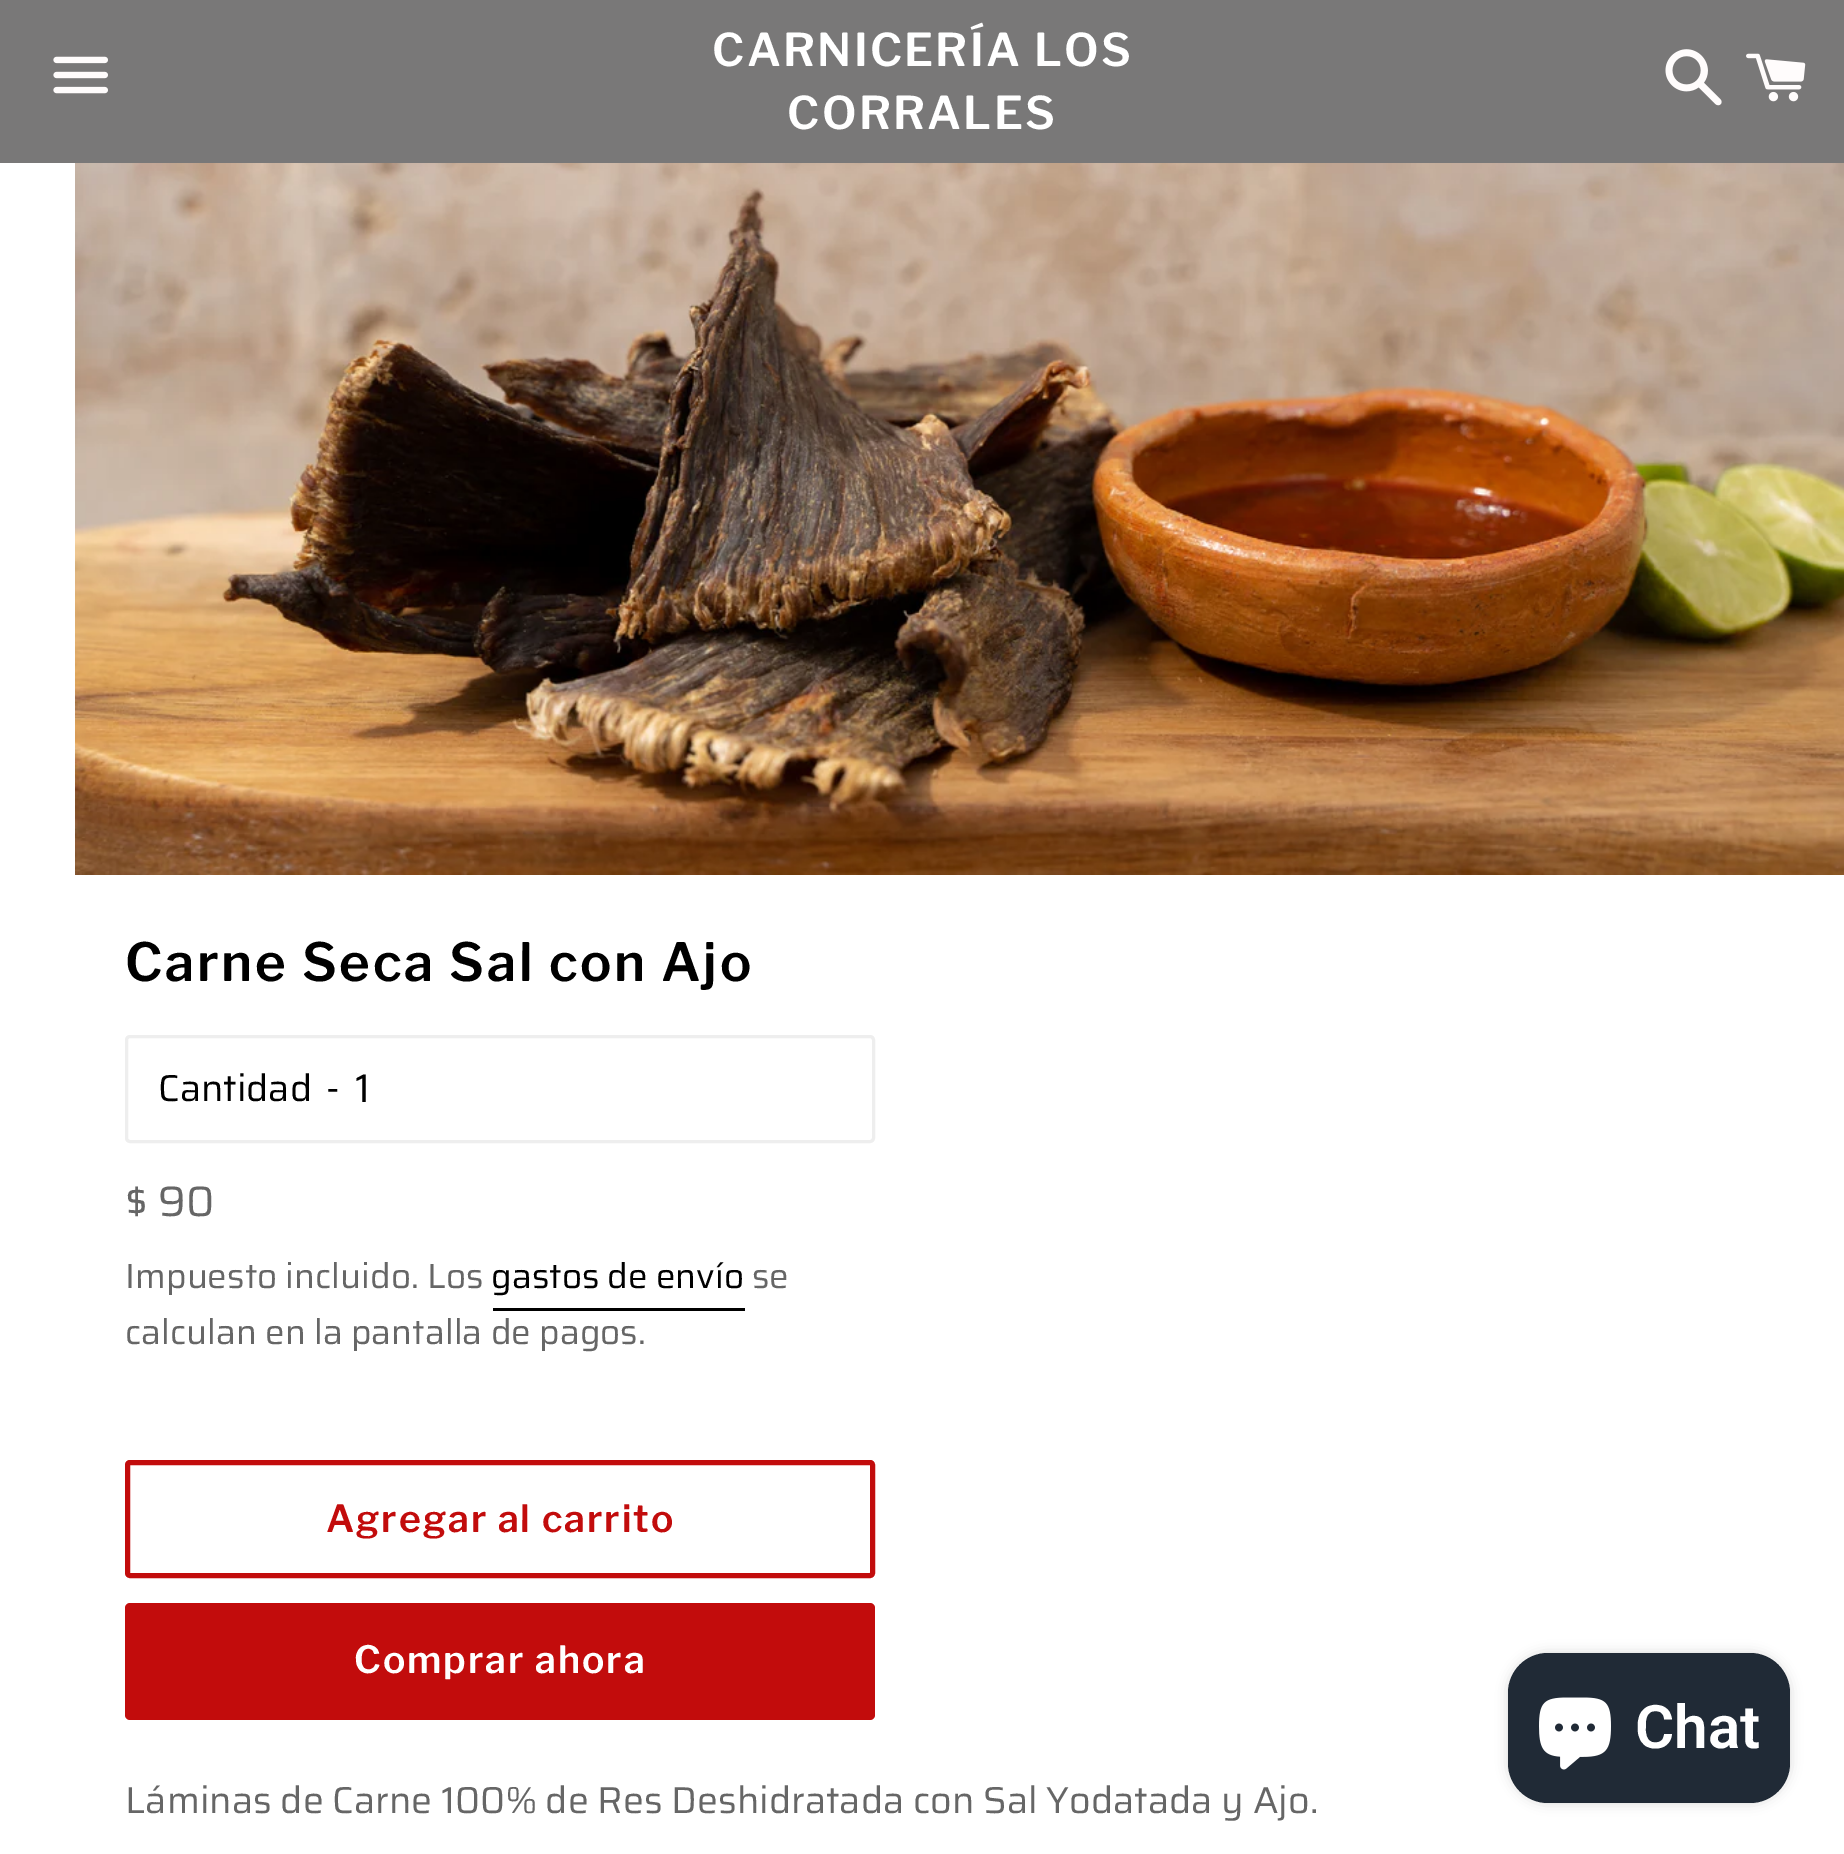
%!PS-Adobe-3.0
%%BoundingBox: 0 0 1844 1854
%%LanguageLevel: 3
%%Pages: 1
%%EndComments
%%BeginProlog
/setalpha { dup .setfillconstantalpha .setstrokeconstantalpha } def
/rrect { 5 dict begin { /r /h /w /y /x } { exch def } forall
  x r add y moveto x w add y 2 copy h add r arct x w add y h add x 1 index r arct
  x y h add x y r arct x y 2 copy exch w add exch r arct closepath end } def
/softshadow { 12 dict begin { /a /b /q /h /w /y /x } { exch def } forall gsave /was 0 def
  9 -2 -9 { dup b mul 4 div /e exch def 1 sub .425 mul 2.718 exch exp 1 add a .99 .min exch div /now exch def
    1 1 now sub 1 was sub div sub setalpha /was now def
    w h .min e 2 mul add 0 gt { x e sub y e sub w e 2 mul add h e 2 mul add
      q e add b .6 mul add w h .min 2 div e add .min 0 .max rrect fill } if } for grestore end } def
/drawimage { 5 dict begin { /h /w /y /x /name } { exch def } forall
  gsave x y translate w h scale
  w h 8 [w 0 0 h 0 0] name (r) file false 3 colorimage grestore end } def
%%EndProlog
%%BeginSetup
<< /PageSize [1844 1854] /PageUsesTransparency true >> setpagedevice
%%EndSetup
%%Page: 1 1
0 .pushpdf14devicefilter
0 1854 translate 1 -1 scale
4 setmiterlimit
1 setgray
0 0 1844 1854 rectfill
0.475 0.471 0.471 setrgbcolor
0 0 1844 163 rectfill
(images/1.raw) 53 56 55 38 drawimage
(images/2.raw) 1665 49 57 57 drawimage
(images/3.raw) 1746 53 60 49 drawimage
(images/4.raw) 75 163 1769 712 drawimage
0.933 setgray
3 setlinewidth
126.5 1036.5 747 105 3.5 rrect stroke
0 setgray
493 1308 252 3 rectfill
0.761 0.047 0.047 setrgbcolor
5 setlinewidth
127.5 1462.5 745 113 2.5 rrect stroke
125 1603 750 117 5 rrect fill
0 setgray
1508 1653 282 150 40 6 0.15 softshadow
0.125 0.165 0.212 setrgbcolor
1508 1653 282 150 40 rrect fill
(images/5.raw) 1539 1697 72 73 drawimage
/LibreFranklin-SemiBold [45 0 0 -45 0 0] selectfont
1 setgray
712 66 moveto 2.25 0 (CARNICERÍA LOS) ashow
787 129 moveto 2.25 0 (CORRALES) ashow
/LibreFranklin-SemiBold [52.5 0 0 -52.5 0 0] selectfont
0 setgray
125 981 moveto 2.6 0 (Carne Seca Sal con Ajo) ashow
/Saira-Regular [37.5 0 0 -37.5 0 0] selectfont
158 1101 moveto (Cantidad) show
326 1101 moveto (-) show
/Saira-Regular [40 0 0 -40 0 0] selectfont
355 1102 moveto (1) show
/Saira-Regular [42.5 0 0 -42.5 0 0] selectfont
0.4 setgray
125 1216 moveto ($ 90) show
/Saira-Regular [35 0 0 -35 0 0] selectfont
125 1288 moveto (Impuesto incluido. Los) show
0 setgray
491 1288 moveto (gastos de envío) show
0.4 setgray
752 1288 moveto (se) show
125 1344 moveto (calculan en la pantalla de pagos.) show
/LibreFranklin-SemiBold [37.5 0 0 -37.5 0 0] selectfont
0.761 0.047 0.047 setrgbcolor
326 1532 moveto 1.9 0 (Agregar al carrito) ashow
1 setgray
354 1673 moveto 1.9 0 (Comprar ahora) ashow
/Saira-Regular [37.5 0 0 -37.5 0 0] selectfont
0.4 setgray
125 1813 moveto (Láminas de Carne 100% de Res Deshidratada con Sal Yodatada y Ajo.) show
/Roboto-SemiBold [60 0 0 -60 0 0] selectfont
1 setgray
1635 1748 moveto (Chat) show
.poppdf14devicefilter showpage
%%EOF
